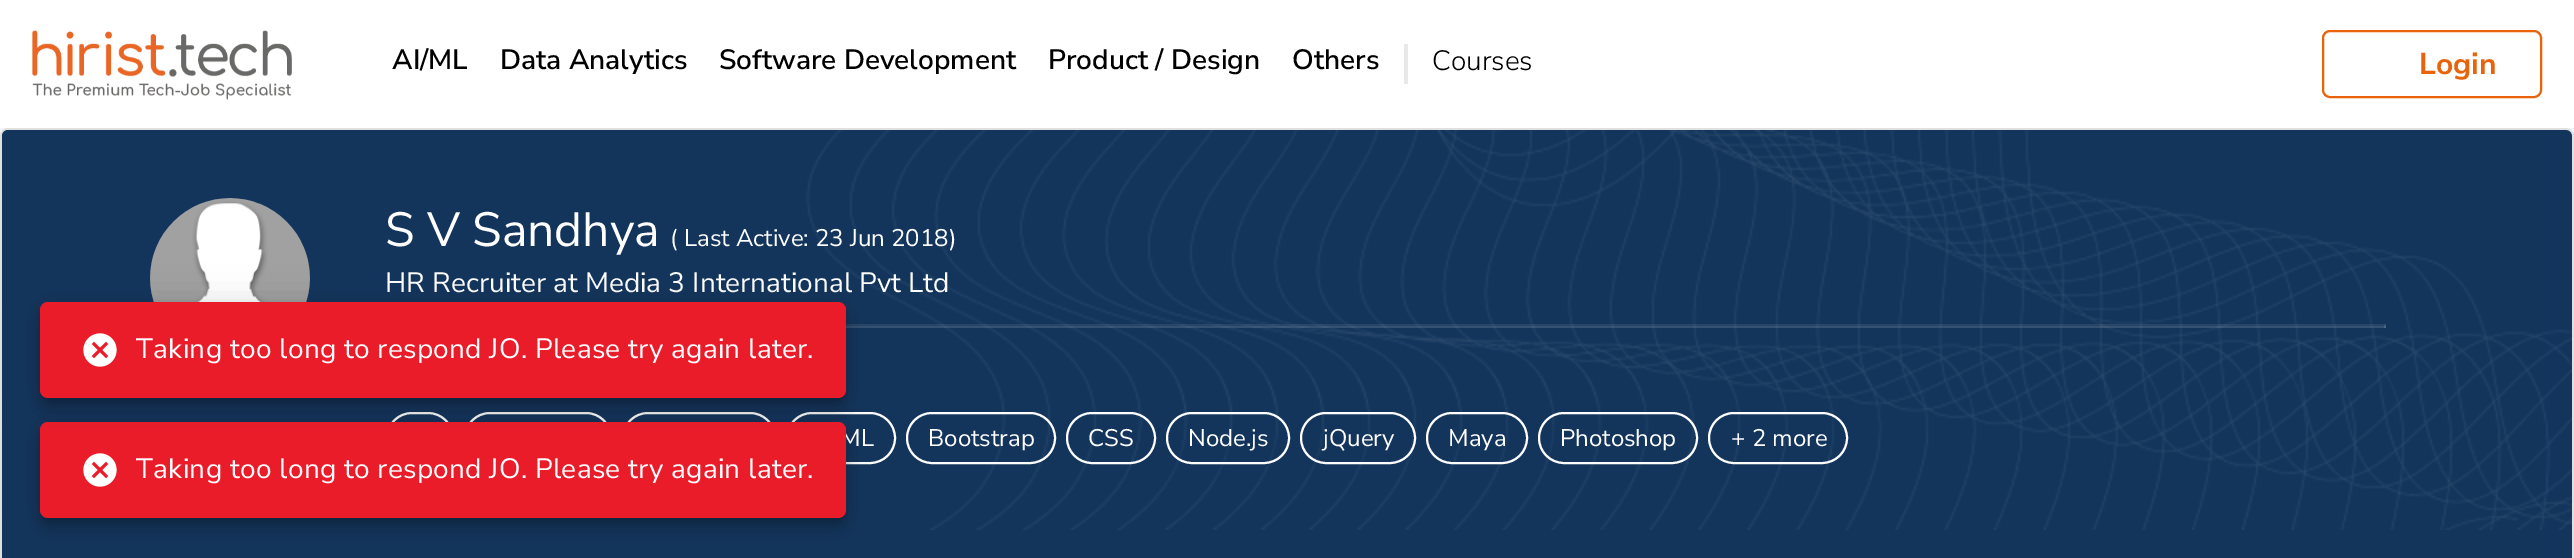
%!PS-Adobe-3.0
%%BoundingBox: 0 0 2574 558
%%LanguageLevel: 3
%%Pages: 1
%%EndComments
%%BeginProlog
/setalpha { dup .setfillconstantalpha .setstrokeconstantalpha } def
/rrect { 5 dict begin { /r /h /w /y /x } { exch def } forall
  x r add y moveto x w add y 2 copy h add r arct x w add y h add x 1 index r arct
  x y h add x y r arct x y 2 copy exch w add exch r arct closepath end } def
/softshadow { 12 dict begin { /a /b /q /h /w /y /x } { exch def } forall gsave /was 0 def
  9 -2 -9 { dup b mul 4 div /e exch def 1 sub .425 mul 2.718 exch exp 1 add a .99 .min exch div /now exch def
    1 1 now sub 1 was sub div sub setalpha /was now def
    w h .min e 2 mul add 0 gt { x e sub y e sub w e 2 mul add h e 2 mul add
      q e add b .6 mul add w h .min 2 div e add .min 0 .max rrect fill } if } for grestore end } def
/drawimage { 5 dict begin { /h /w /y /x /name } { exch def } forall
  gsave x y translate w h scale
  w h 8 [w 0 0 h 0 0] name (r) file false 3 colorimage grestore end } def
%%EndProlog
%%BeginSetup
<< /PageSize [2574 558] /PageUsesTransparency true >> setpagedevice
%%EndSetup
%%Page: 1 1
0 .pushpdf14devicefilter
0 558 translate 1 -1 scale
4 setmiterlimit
0.949 0.961 0.98 setrgbcolor
0 0 2574 558 rectfill
1 setgray
0 0 2574 128 rectfill
(images/1.raw) 32 30 260 70 drawimage
0.914 0.91 0.91 setrgbcolor
1404 44 4 40 rectfill
0.914 0.388 0.047 setrgbcolor
2 setlinewidth
2323 31 218 66 7 rrect stroke
1 setgray
0 128 2574 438 8 rrect fill
0.12 setalpha
0 setgray
1 129 2572 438 7 rrect stroke
1 setalpha
0.075 0.208 0.361 setrgbcolor
2 130 2570 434 6 rrect fill
(images/2.raw) 806 130 1766 400 drawimage
(images/3.raw) 150 198 160 104 drawimage
0.15 setalpha
0.624 setgray
846 324 1540 2 rectfill
1 setalpha
0.204 0.318 0.447 setrgbcolor
2384 324 2 4 rectfill
0.15 setalpha
0.933 setgray
846 326 1540 2 rectfill
1 setalpha
1 setgray
387 413 66 50 25 rrect stroke
465 413 146 50 25 rrect stroke
623 413 152 50 25 rrect stroke
787 413 108 50 25 rrect stroke
907 413 148 50 25 rrect stroke
1067 413 88 50 25 rrect stroke
1167 413 122 50 25 rrect stroke
1301 413 114 50 25 rrect stroke
1427 413 100 50 25 rrect stroke
1539 413 158 50 25 rrect stroke
1709 413 138 50 25 rrect stroke
0 setgray
42 310 802 92 6 5 0.2 softshadow
40 424 806 96 8 18 0.12 softshadow
40 434 806 96 8 10 0.14 softshadow
42 430 802 92 6 5 0.2 softshadow
/NunitoSans-SemiBold [28 0 0 -28 0 0] selectfont
392 69 moveto (AI/ML) show
500 69 moveto (Data Analytics) show
719 69 moveto (Software Development) show
1048 69 moveto (Product / Design) show
1292 69 moveto (Others) show
/NunitoSans-Light [28 0 0 -28 0 0] selectfont
1432 70 moveto (Courses) show
/NunitoSans-Bold [30 0 0 -30 0 0] selectfont
0.914 0.388 0.047 setrgbcolor
2419 74 moveto (Login) show
/NunitoSans-Regular [48 0 0 -48 0 0] selectfont
1 setgray
385 246 moveto (S V Sandhya) show
/NunitoSans-Regular [24 0 0 -24 0 0] selectfont
670 246 moveto (\( Last Active: 23 Jun 2018\)) show
/NunitoSans-Regular [28 0 0 -28 0 0] selectfont
385 292 moveto (HR Recruiter at Media 3 International Pvt Ltd) show
/NunitoSans-Regular [24 0 0 -24 0 0] selectfont
840 446 moveto (ML) show
928 446 moveto (Bootstrap) show
1088 446 moveto (CSS) show
1188 446 moveto (Node.js) show
1323 446 moveto (jQuery) show
1448 446 moveto (Maya) show
1560 446 moveto (Photoshop) show
1731 446 moveto (+ 2 more) show
0.922 0.11 0.165 setrgbcolor
40 422 806 96 8 rrect fill
0 setgray
40 314 806 96 8 10 0.14 softshadow
(images/4.raw) 83 453 34 34 drawimage
40 304 806 96 8 18 0.12 softshadow
0.922 0.11 0.165 setrgbcolor
40 302 806 96 8 rrect fill
(images/4.raw) 83 333 34 34 drawimage
/NunitoSans-Regular [28 0 0 -28 0 0] selectfont
1 setgray
136 358 moveto 0.3 0 (Taking too long to respond JO. Please try again later.) ashow
136 478 moveto 0.3 0 (Taking too long to respond JO. Please try again later.) ashow
.poppdf14devicefilter showpage
%%EOF
